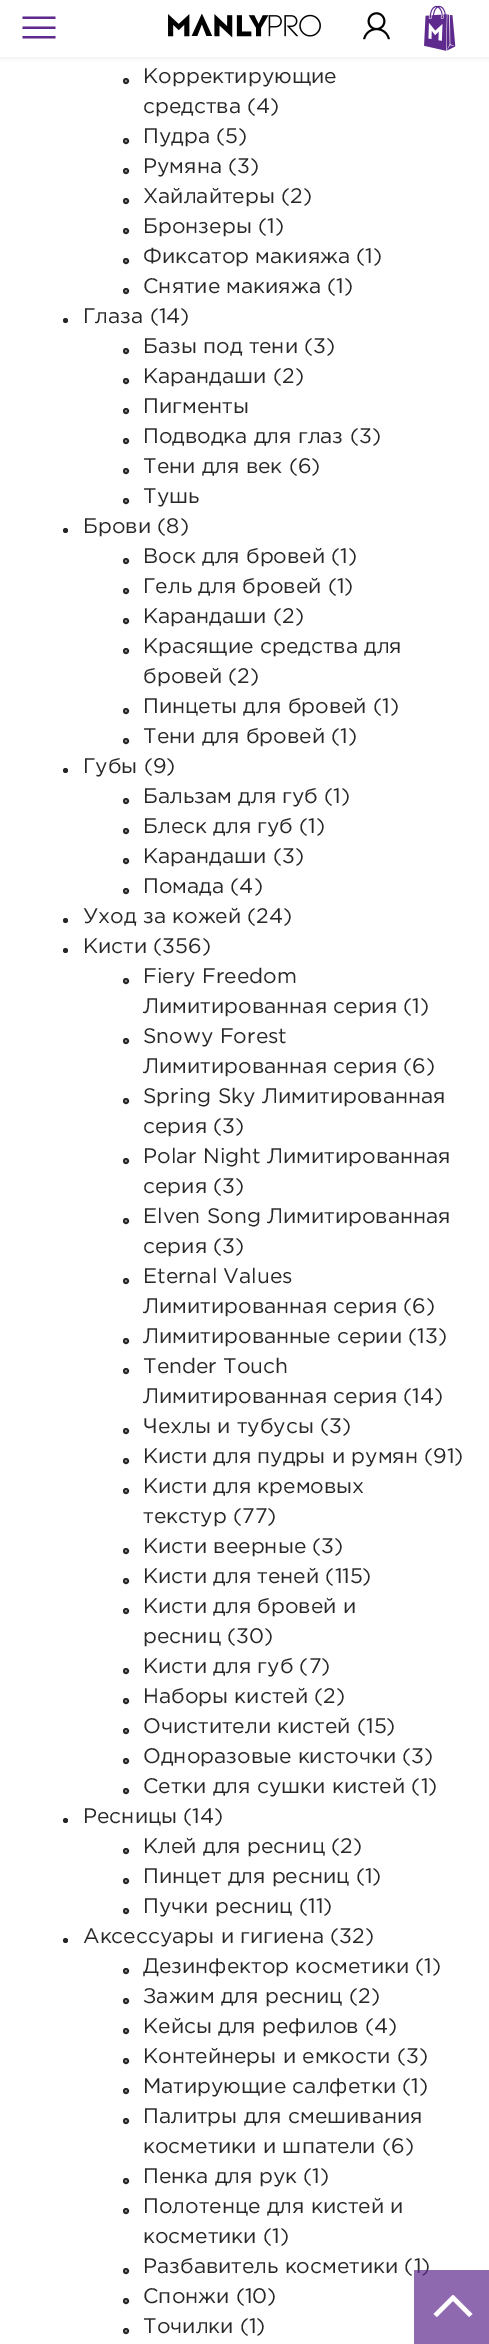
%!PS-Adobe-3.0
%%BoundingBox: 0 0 489 2344
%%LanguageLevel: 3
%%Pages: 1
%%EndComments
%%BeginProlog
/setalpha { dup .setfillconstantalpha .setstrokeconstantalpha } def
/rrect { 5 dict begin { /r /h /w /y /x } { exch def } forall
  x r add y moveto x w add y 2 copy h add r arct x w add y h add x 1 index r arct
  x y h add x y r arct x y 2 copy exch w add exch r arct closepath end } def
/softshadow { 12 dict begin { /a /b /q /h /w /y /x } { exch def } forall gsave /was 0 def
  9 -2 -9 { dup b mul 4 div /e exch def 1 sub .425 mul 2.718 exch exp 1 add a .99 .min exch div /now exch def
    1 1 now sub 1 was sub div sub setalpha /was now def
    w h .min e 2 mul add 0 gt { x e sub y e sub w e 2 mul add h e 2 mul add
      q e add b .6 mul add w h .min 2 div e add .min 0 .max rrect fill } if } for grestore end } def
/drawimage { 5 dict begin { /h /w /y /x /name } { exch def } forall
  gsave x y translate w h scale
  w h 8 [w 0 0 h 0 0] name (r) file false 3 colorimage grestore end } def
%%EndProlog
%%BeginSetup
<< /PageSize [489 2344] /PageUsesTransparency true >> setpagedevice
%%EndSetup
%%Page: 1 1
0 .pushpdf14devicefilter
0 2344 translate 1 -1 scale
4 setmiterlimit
1 setgray
0 0 489 2344 rectfill
0 setgray
0 2 489 57 0 2 0.05 softshadow
1 setgray
0 0 489 57 rectfill
0.373 0.165 0.557 setrgbcolor
newpath 22.5 38.5 moveto 22.5 36 lineto 55.5 36 lineto 55.5 38.5 lineto closepath 22.5 26.5 moveto 55.5 26.5 lineto 55.5 29 lineto 22.5 29 lineto closepath 22.5 16.5 moveto 55.5 16.5 lineto 55.5 19 lineto 22.5 19 lineto closepath fill
(images/1.raw) 168 14 153 24 drawimage
(images/2.raw) 424 5 32 46 drawimage
(images/3.raw) 363 12 27 28 drawimage
0.157 setgray
2 setlinewidth
newpath 126 81 2 0 360 arc closepath stroke
newpath 126 141 2 0 360 arc closepath stroke
newpath 126 171 2 0 360 arc closepath stroke
newpath 126 201 2 0 360 arc closepath stroke
newpath 126 231 2 0 360 arc closepath stroke
newpath 126 261 2 0 360 arc closepath stroke
newpath 126 291 2 0 360 arc closepath stroke
newpath 65.5 320.5 2.5 0 360 arc closepath fill
newpath 126 351 2 0 360 arc closepath stroke
newpath 126 381 2 0 360 arc closepath stroke
newpath 126 411 2 0 360 arc closepath stroke
newpath 126 441 2 0 360 arc closepath stroke
newpath 126 471 2 0 360 arc closepath stroke
newpath 126 501 2 0 360 arc closepath stroke
newpath 65.5 530.5 2.5 0 360 arc closepath fill
newpath 126 561 2 0 360 arc closepath stroke
newpath 126 591 2 0 360 arc closepath stroke
newpath 126 621 2 0 360 arc closepath stroke
newpath 126 651 2 0 360 arc closepath stroke
newpath 126 711 2 0 360 arc closepath stroke
newpath 126 741 2 0 360 arc closepath stroke
newpath 65.5 770.5 2.5 0 360 arc closepath fill
newpath 126 801 2 0 360 arc closepath stroke
newpath 126 831 2 0 360 arc closepath stroke
newpath 126 861 2 0 360 arc closepath stroke
newpath 126 891 2 0 360 arc closepath stroke
newpath 65.5 920.5 2.5 0 360 arc closepath fill
newpath 65.5 950.5 2.5 0 360 arc closepath fill
newpath 126 981 2 0 360 arc closepath stroke
newpath 126 1041 2 0 360 arc closepath stroke
newpath 126 1101 2 0 360 arc closepath stroke
newpath 126 1161 2 0 360 arc closepath stroke
newpath 126 1221 2 0 360 arc closepath stroke
newpath 126 1281 2 0 360 arc closepath stroke
newpath 126 1341 2 0 360 arc closepath stroke
newpath 126 1371 2 0 360 arc closepath stroke
newpath 126 1431 2 0 360 arc closepath stroke
newpath 126 1461 2 0 360 arc closepath stroke
newpath 126 1491 2 0 360 arc closepath stroke
newpath 126 1551 2 0 360 arc closepath stroke
newpath 126 1581 2 0 360 arc closepath stroke
newpath 126 1611 2 0 360 arc closepath stroke
newpath 126 1671 2 0 360 arc closepath stroke
newpath 126 1701 2 0 360 arc closepath stroke
newpath 126 1731 2 0 360 arc closepath stroke
newpath 126 1761 2 0 360 arc closepath stroke
newpath 126 1791 2 0 360 arc closepath stroke
newpath 65.5 1820.5 2.5 0 360 arc closepath fill
newpath 126 1851 2 0 360 arc closepath stroke
newpath 126 1881 2 0 360 arc closepath stroke
newpath 126 1911 2 0 360 arc closepath stroke
newpath 65.5 1940.5 2.5 0 360 arc closepath fill
newpath 126 1971 2 0 360 arc closepath stroke
newpath 126 2001 2 0 360 arc closepath stroke
newpath 126 2031 2 0 360 arc closepath stroke
newpath 126 2061 2 0 360 arc closepath stroke
newpath 126 2091 2 0 360 arc closepath stroke
newpath 126 2121 2 0 360 arc closepath stroke
newpath 126 2181 2 0 360 arc closepath stroke
newpath 126 2211 2 0 360 arc closepath stroke
newpath 126 2271 2 0 360 arc closepath stroke
newpath 126 2301 2 0 360 arc closepath stroke
newpath 126 2331 2 0 360 arc closepath stroke
/Gotham-Regular [21 0 0 -21 0 0] selectfont
143 83 moveto (Корректирующие) show
143 113 moveto (средства \(4\)) show
143 143 moveto (Пудра \(5\)) show
143 173 moveto (Румяна \(3\)) show
143 203 moveto (Хайлайтеры \(2\)) show
143 233 moveto (Бронзеры \(1\)) show
143 263 moveto (Фиксатор макияжа \(1\)) show
143 293 moveto (Снятие макияжа \(1\)) show
83 323 moveto (Глаза \(14\)) show
143 353 moveto (Базы под тени \(3\)) show
143 383 moveto (Карандаши \(2\)) show
143 413 moveto (Пигменты) show
143 443 moveto (Подводка для глаз \(3\)) show
143 473 moveto (Тени для век \(6\)) show
143 503 moveto (Тушь) show
83 533 moveto (Брови \(8\)) show
143 563 moveto (Воск для бровей \(1\)) show
143 593 moveto (Гель для бровей \(1\)) show
143 623 moveto (Карандаши \(2\)) show
143 653 moveto (Красящие средства для) show
143 683 moveto (бровей \(2\)) show
143 713 moveto (Пинцеты для бровей \(1\)) show
143 743 moveto (Тени для бровей \(1\)) show
83 773 moveto (Губы \(9\)) show
143 803 moveto (Бальзам для губ \(1\)) show
143 833 moveto (Блеск для губ \(1\)) show
143 863 moveto (Карандаши \(3\)) show
143 893 moveto (Помада \(4\)) show
83 923 moveto (Уход за кожей \(24\)) show
83 953 moveto (Кисти \(356\)) show
143 983 moveto (Fiery Freedom) show
143 1013 moveto (Лимитированная серия \(1\)) show
143 1043 moveto (Snowy Forest) show
143 1073 moveto (Лимитированная серия \(6\)) show
143 1103 moveto (Spring Sky Лимитированная) show
143 1133 moveto (серия \(3\)) show
143 1163 moveto (Polar Night Лимитированная) show
143 1193 moveto (серия \(3\)) show
143 1223 moveto (Elven Song Лимитированная) show
143 1253 moveto (серия \(3\)) show
143 1283 moveto (Eternal Values) show
143 1313 moveto (Лимитированная серия \(6\)) show
143 1343 moveto (Лимитированные серии \(13\)) show
143 1373 moveto (Tender Touch) show
143 1403 moveto (Лимитированная серия \(14\)) show
143 1433 moveto (Чехлы и тубусы \(3\)) show
143 1463 moveto (Кисти для пудры и румян \(91\)) show
143 1493 moveto (Кисти для кремовых) show
143 1523 moveto (текстур \(77\)) show
143 1553 moveto (Кисти веерные \(3\)) show
143 1583 moveto (Кисти для теней \(115\)) show
143 1613 moveto (Кисти для бровей и) show
143 1643 moveto (ресниц \(30\)) show
143 1673 moveto (Кисти для губ \(7\)) show
143 1703 moveto (Наборы кистей \(2\)) show
143 1733 moveto (Очистители кистей \(15\)) show
143 1763 moveto (Одноразовые кисточки \(3\)) show
143 1793 moveto (Сетки для сушки кистей \(1\)) show
83 1823 moveto (Ресницы \(14\)) show
143 1853 moveto (Клей для ресниц \(2\)) show
143 1883 moveto (Пинцет для ресниц \(1\)) show
143 1913 moveto (Пучки ресниц \(11\)) show
83 1943 moveto (Аксессуары и гигиена \(32\)) show
143 1973 moveto (Дезинфектор косметики \(1\)) show
143 2003 moveto (Зажим для ресниц \(2\)) show
143 2033 moveto (Кейсы для рефилов \(4\)) show
143 2063 moveto (Контейнеры и емкости \(3\)) show
143 2093 moveto (Матирующие салфетки \(1\)) show
143 2123 moveto (Палитры для смешивания) show
143 2153 moveto (косметики и шпатели \(6\)) show
143 2183 moveto (Пенка для рук \(1\)) show
143 2213 moveto (Полотенце для кистей и) show
143 2243 moveto (косметики \(1\)) show
143 2273 moveto (Разбавитель косметики \(1\)) show
143 2303 moveto (Спонжи \(10\)) show
143 2333 moveto (Точилки \(1\)) show
0.7 setalpha
0.373 0.165 0.557 setrgbcolor
414 2270 75 74 rectfill
1 setalpha
1 setgray
newpath 472.5 2314 moveto 469 2317 lineto 453 2301 lineto 437 2317 lineto 433.5 2314 lineto 452.5 2295 lineto 453 2295.5 lineto 453.5 2295 lineto closepath fill
.poppdf14devicefilter showpage
%%EOF
